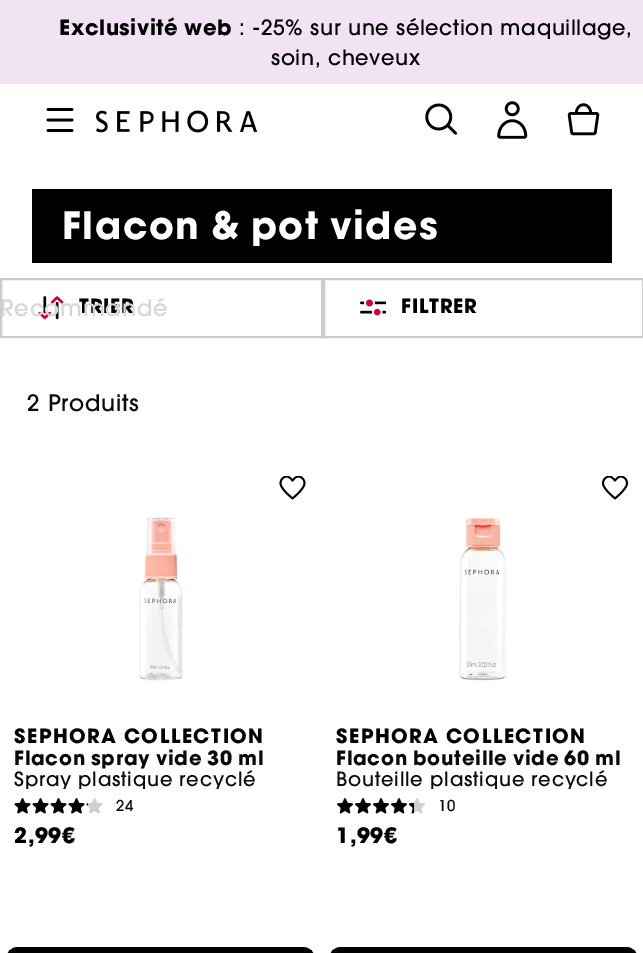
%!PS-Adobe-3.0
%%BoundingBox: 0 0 643 953
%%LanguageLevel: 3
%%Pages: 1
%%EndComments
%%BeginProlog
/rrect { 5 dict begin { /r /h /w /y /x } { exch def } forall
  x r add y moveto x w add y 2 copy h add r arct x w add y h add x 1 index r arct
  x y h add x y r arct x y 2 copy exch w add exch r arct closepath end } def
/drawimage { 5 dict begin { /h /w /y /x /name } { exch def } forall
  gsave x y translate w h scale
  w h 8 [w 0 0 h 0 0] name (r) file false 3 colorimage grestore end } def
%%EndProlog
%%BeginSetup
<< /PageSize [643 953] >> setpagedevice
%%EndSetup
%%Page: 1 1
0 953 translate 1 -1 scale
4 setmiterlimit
1 setgray
0 0 643 953 rectfill
0.945 0.89 0.957 setrgbcolor
0 0 643 84 rectfill
(images/1.raw) 46 108 28 24 drawimage
(images/2.raw) 96 110 162 23 drawimage
(images/3.raw) 425 103 32 32 drawimage
(images/4.raw) 497 101 31 38 drawimage
(images/5.raw) 567 103 33 33 drawimage
0 setgray
32 189 580 74 rectfill
0.8 setgray
2 setlinewidth
1 279 321 58 rectstroke
(images/6.raw) 38 296 26 24 drawimage
324 279 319 58 rectstroke
(images/7.raw) 360 299 26 17 drawimage
(images/8.raw) 279 476 27 24 drawimage
(images/9.raw) 139 516 45 166 drawimage
(images/10.raw) 14 798 17 16 drawimage
(images/10.raw) 32 798 17 16 drawimage
(images/10.raw) 50 798 17 16 drawimage
(images/10.raw) 68 798 17 16 drawimage
(images/11.raw) 86 798 17 16 drawimage
0 setgray
9 950 303 3 rectfill
3 setlinewidth
7.5 948.5 306 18 10.5 rrect stroke
(images/12.raw) 601 476 28 24 drawimage
(images/13.raw) 459 517 48 164 drawimage
(images/14.raw) 337 798 16 16 drawimage
(images/14.raw) 355 798 16 16 drawimage
(images/14.raw) 373 798 16 16 drawimage
(images/14.raw) 391 798 16 16 drawimage
(images/15.raw) 409 798 16 16 drawimage
332 950 303 3 rectfill
330.5 948.5 306 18 10.5 rrect stroke
/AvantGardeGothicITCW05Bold-Bold [21 0 0 -21 0 0] selectfont
59 35 moveto 0.6 0 (Exclusivité web) ashow
/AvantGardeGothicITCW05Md-Medium [21 0 0 -21 0 0] selectfont
239 35 moveto 0.6 0 (: -25% sur une sélection maquillage,) ashow
271 65 moveto 0.6 0 (soin, cheveux) ashow
/AvantGardeGothicITCW05Bold-Bold [37.5 0 0 -37.5 0 0] selectfont
1 setgray
62 239 moveto 1.5 0 (Flacon & pot vides) ashow
/AvantGardeGothicITCW05Bold-Bold [19.5 0 0 -19.5 0 0] selectfont
0 setgray
79 313 moveto 0.75 0 (TRIER) ashow
/AvantGardeGothicITCW05Md-Medium [22.5 0 0 -22.5 0 0] selectfont
0.847 0.835 0.835 setrgbcolor
0 316 moveto 0.75 0 (Recommandé) ashow
/AvantGardeGothicITCW05Bold-Bold [19.5 0 0 -19.5 0 0] selectfont
0 setgray
401 313 moveto 0.75 0 (FILTRER) ashow
/AvantGardeGothicITCW05Md-Medium [22.5 0 0 -22.5 0 0] selectfont
0.039 setgray
27 411 moveto 0.75 0 (2 Produits) ashow
/AvantGardeGothicITCW05Bold-Bold [19.5 0 0 -19.5 0 0] selectfont
0 setgray
14 743 moveto 1.5 0 (SEPHORA COLLECTION) ashow
0.039 setgray
14 765 moveto 0.75 0 (Flacon spray vide 30 ml) ashow
gsave
14 770 294 19 rectclip
/AvantGardeGothicITCW05Md-Medium [19.5 0 0 -19.5 0 0] selectfont
14 786 moveto 0.75 0 (Spray plastique recyclé) ashow
grestore
/AvantGardeGothicITCW05Md-Medium [15 0 0 -15 0 0] selectfont
116 811 moveto 0.75 0 (24) ashow
/AvantGardeGothicITCW05Bold-Bold [21 0 0 -21 0 0] selectfont
0 setgray
14 843 moveto 0.6 0 (2,99€) ashow
/AvantGardeGothicITCW05Bold-Bold [19.5 0 0 -19.5 0 0] selectfont
336 743 moveto 1.5 0 (SEPHORA COLLECTION) ashow
0.039 setgray
336 765 moveto 0.75 0 (Flacon bouteille vide 60 ml) ashow
gsave
336 770 294 19 rectclip
/AvantGardeGothicITCW05Md-Medium [19.5 0 0 -19.5 0 0] selectfont
336 786 moveto 0.75 0 (Bouteille plastique recyclé) ashow
grestore
/AvantGardeGothicITCW05Md-Medium [15 0 0 -15 0 0] selectfont
438 811 moveto 0.75 0 (10) ashow
/AvantGardeGothicITCW05Bold-Bold [21 0 0 -21 0 0] selectfont
0 setgray
336 843 moveto 0.6 0 (1,99€) ashow
showpage
%%EOF
